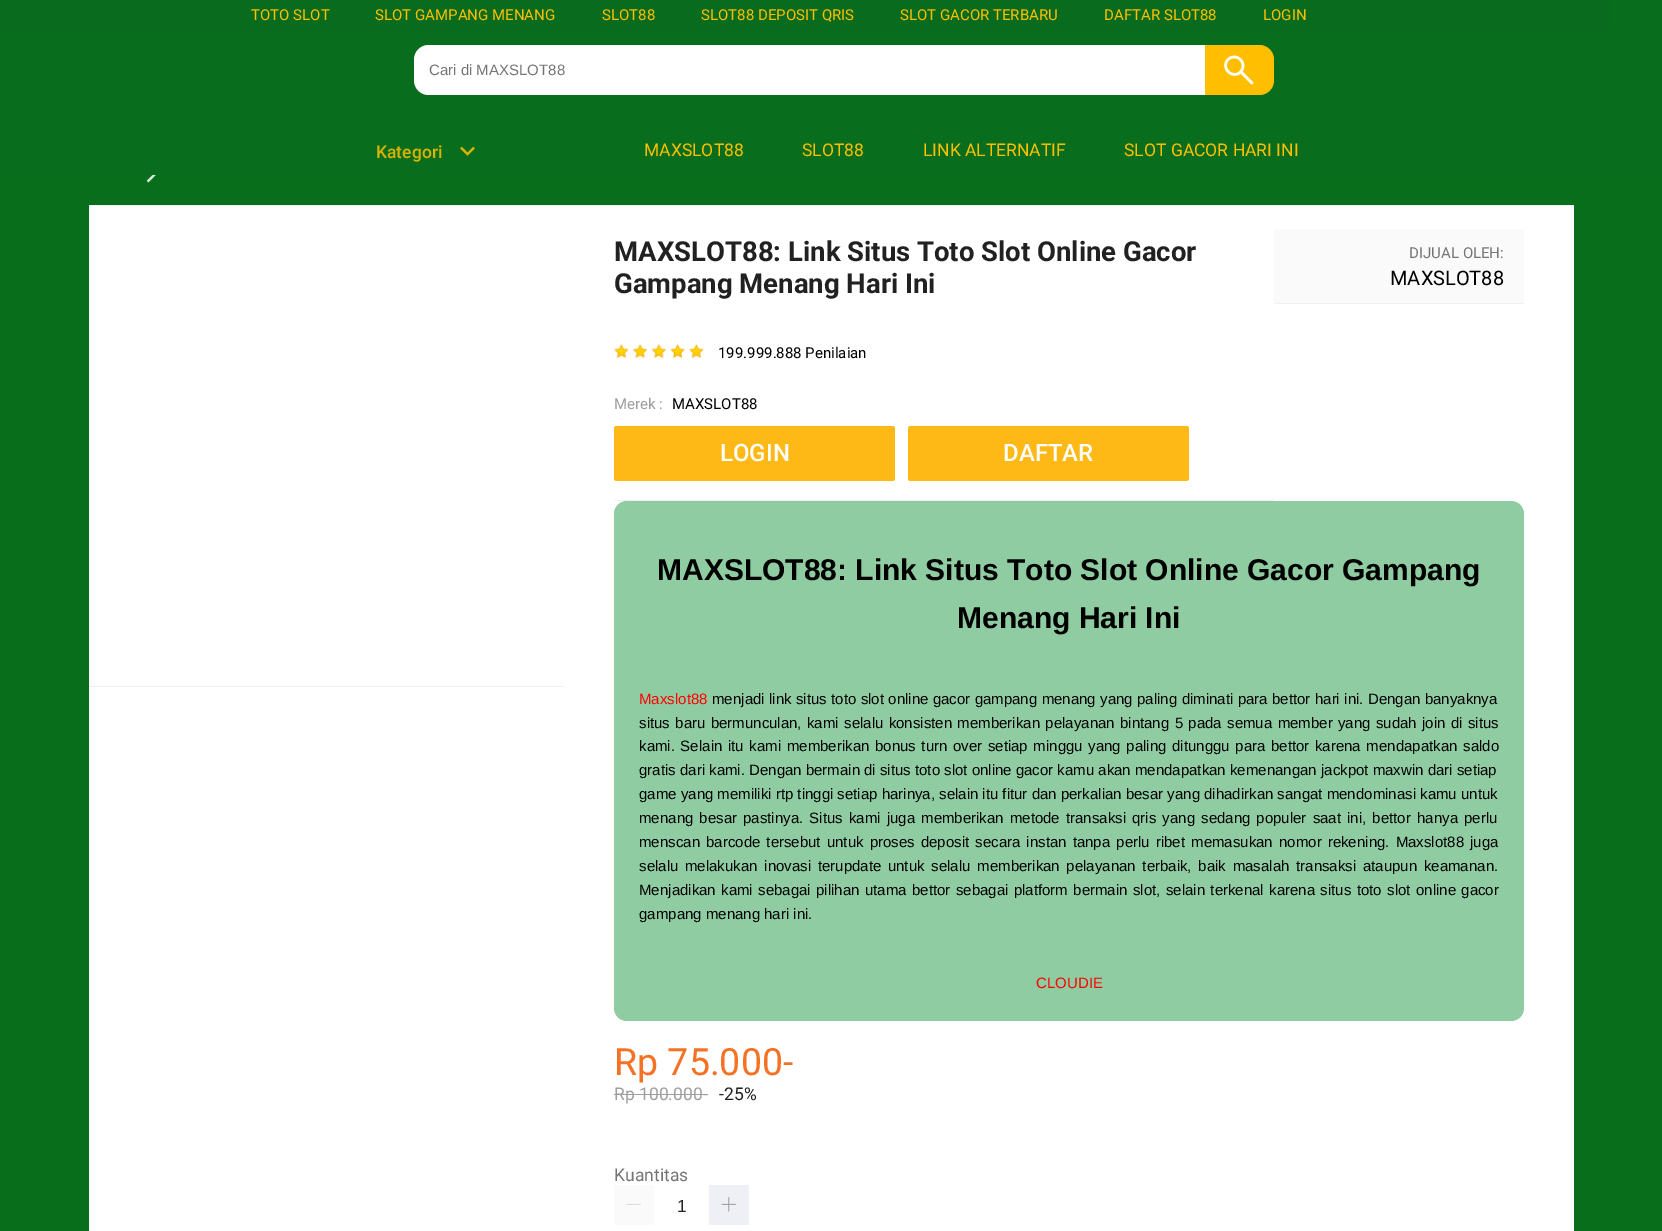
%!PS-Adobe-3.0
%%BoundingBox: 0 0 1662 1231
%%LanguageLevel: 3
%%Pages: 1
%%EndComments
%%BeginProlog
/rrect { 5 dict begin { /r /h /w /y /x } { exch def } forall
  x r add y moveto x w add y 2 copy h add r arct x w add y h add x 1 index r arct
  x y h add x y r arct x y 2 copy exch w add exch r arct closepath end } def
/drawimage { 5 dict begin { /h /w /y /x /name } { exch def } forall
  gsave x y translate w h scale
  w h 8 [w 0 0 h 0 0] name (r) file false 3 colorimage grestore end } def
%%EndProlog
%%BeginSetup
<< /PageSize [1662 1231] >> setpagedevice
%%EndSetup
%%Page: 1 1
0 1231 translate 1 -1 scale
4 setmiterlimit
0.031 0.431 0.106 setrgbcolor
0 0 1662 1231 rectfill
0.031 0.431 0.118 setrgbcolor
0 0 1662 175 rectfill
0.031 0.42 0.114 setrgbcolor
0 0 1610 31 rectfill
1 setgray
newpath 429 45 moveto 1205 45 lineto 1205 95 lineto 429 95 lineto 420.5 95 414 88.5 414 80 curveto 414 60 lineto 414 51.5 420.5 45 429 45 curveto closepath fill
1 0.749 0 setrgbcolor
newpath 1205 45 moveto 1259 45 lineto 1267.5 45 1274 51.5 1274 60 curveto 1274 80 lineto 1274 88.5 1267.5 95 1259 95 curveto 1205 95 lineto closepath fill
1 setgray
2.5 setlinewidth
1 setlinecap
1 setlinejoin
newpath 1240.5 72 moveto 1248.5 63.5 1236.5 51.5 1228 59.5 curveto 1220 67.5 1232.5 80 1240.5 72 curveto closepath 1241 72 moveto 1252 83 lineto stroke
(images/1.raw) 460 146 15 10 drawimage
0.937 0.941 0.961 setrgbcolor
89 205 1485 1 rectfill
(images/2.raw) 146 175 10 8 drawimage
1 setgray
89 206 1485 1025 rectfill
0.937 0.941 0.961 setrgbcolor
89 686 475 1 rectfill
(images/3.raw) 613 343 16 15 drawimage
(images/4.raw) 632 344 16 14 drawimage
(images/5.raw) 651 343 16 15 drawimage
(images/6.raw) 670 343 15 15 drawimage
(images/3.raw) 688 343 16 15 drawimage
614 500 660 1 rectfill
1 0.725 0.086 setrgbcolor
614 426 281 55 2.5 rrect fill
908 426 281 55 2.5 rrect fill
0.98 setgray
1274 229 250 74 rectfill
0.937 0.941 0.961 setrgbcolor
1274 303 250 1 rectfill
0.561 0.8 0.635 setrgbcolor
614 501 910 520 13 rrect fill
0.62 setgray
614 1094 94 1 rectfill
0.98 setgray
614 1185 40 40 rectfill
(images/7.raw) 626 1203 15 2 drawimage
0.937 0.941 0.961 setrgbcolor
709 1185 40 40 rectfill
(images/8.raw) 721 1197 15 15 drawimage
/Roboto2-Regular [15 0 0 -15 0 0] selectfont
1 0.749 0 setrgbcolor
251 20 moveto (TOTO SLOT) show
375 20 moveto (SLOT GAMPANG MENANG) show
602 20 moveto (SLOT88) show
701 20 moveto (SLOT88 DEPOSIT QRIS) show
900 20 moveto (SLOT GACOR TERBARU) show
1104 20 moveto (DAFTAR SLOT88) show
1263 20 moveto (LOGIN) show
/LiberationSans-Regular [15 0 0 -15 0 0] selectfont
0.459 setgray
429 75 moveto (Cari di MAXSLOT88) show
/Roboto2-Medium [17.5 0 0 -17.5 0 0] selectfont
0.855 0.702 0.02 setrgbcolor
376 158 moveto (Kategori) show
/Roboto2-Regular [17.5 0 0 -17.5 0 0] selectfont
1 0.749 0 setrgbcolor
644 156 moveto (MAXSLOT88) show
802 156 moveto (SLOT88) show
923 156 moveto (LINK ALTERNATIF) show
1124 156 moveto (SLOT GACOR HARI INI) show
/Roboto-Bold [27.5 0 0 -27.5 0 0] selectfont
0.129 setgray
614 261 moveto (MAXSLOT88: Link Situs Toto Slot Online Gacor) show
614 293 moveto (Gampang Menang Hari Ini) show
/Roboto-Regular [15 0 0 -15 0 0] selectfont
0 setgray
718 358 moveto (199.999.888 Penilaian) show
0.62 setgray
614 409 moveto (Merek :) show
0 setgray
672 409 moveto (MAXSLOT88) show
/Roboto-Medium [24 0 0 -24 0 0] selectfont
1 setgray
720 461 moveto (LOGIN) show
1003 461 moveto (DAFTAR) show
/Roboto-Regular [15 0 0 -15 0 0] selectfont
0.459 setgray
1409 258 moveto (DIJUAL OLEH:) show
/Roboto-Regular [20 0 0 -20 0 0] selectfont
0 setgray
1390 285 moveto (MAXSLOT88) show
/LiberationSans-Bold [30 0 0 -30 0 0] selectfont
657 580 moveto (MAXSLOT88: Link Situs Toto Slot Online Gacor Gampang) show
957 628 moveto (Menang Hari Ini) show
/LiberationSans-Regular [15 0 0 -15 0 0] selectfont
1 0 0 setrgbcolor
639 704 moveto (Maxslot88) show
0 setgray
712 704 moveto 0.25 0 32 (menjadi link situs toto slot online gacor gampang menang yang paling diminati para bettor hari ini. Dengan banyaknya) widthshow
639 728 moveto 1.25 0 32 (situs baru bermunculan, kami selalu konsisten memberikan pelayanan bintang 5 pada semua member yang sudah join di situs) widthshow
639 751 moveto 1.5 0 32 (kami. Selain itu kami memberikan bonus turn over setiap minggu yang paling ditunggu para bettor karena mendapatkan saldo) widthshow
639 775 moveto (gratis dari kami. Dengan bermain di situs toto slot online gacor kamu akan mendapatkan kemenangan jackpot maxwin dari setiap) show
639 799 moveto (game yang memiliki rtp tinggi setiap harinya, selain itu fitur dan perkalian besar yang dihadirkan sangat mendominasi kamu untuk) show
639 823 moveto 2 0 32 (menang besar pastinya. Situs kami juga memberikan metode transaksi qris yang sedang populer saat ini, bettor hanya perlu) widthshow
639 847 moveto 2 0 32 (menscan barcode tersebut untuk proses deposit secara instan tanpa perlu ribet memasukan nomor rekening. Maxslot88 juga) widthshow
639 871 moveto 2.6 0 32 (selalu melakukan inovasi terupdate untuk selalu memberikan pelayanan terbaik, baik masalah transaksi ataupun keamanan.) widthshow
639 895 moveto 1.25 0 32 (Menjadikan kami sebagai pilihan utama bettor sebagai platform bermain slot, selain terkenal karena situs toto slot online gacor) widthshow
639 919 moveto (gampang menang hari ini.) show
1 0 0 setrgbcolor
1036 988 moveto (CLOUDIE) show
/Roboto-Regular [37.5 0 0 -37.5 0 0] selectfont
0.961 0.447 0.141 setrgbcolor
614 1075 moveto (Rp 75.000-) show
/Roboto-Regular [17.5 0 0 -17.5 0 0] selectfont
0.62 setgray
614 1100 moveto (Rp 100.000-) show
0.129 setgray
719 1100 moveto (-25%) show
0.459 setgray
614 1181 moveto (Kuantitas) show
/LiberationSans-Regular [17.5 0 0 -17.5 0 0] selectfont
0.129 setgray
677 1212 moveto (1) show
showpage
%%EOF
